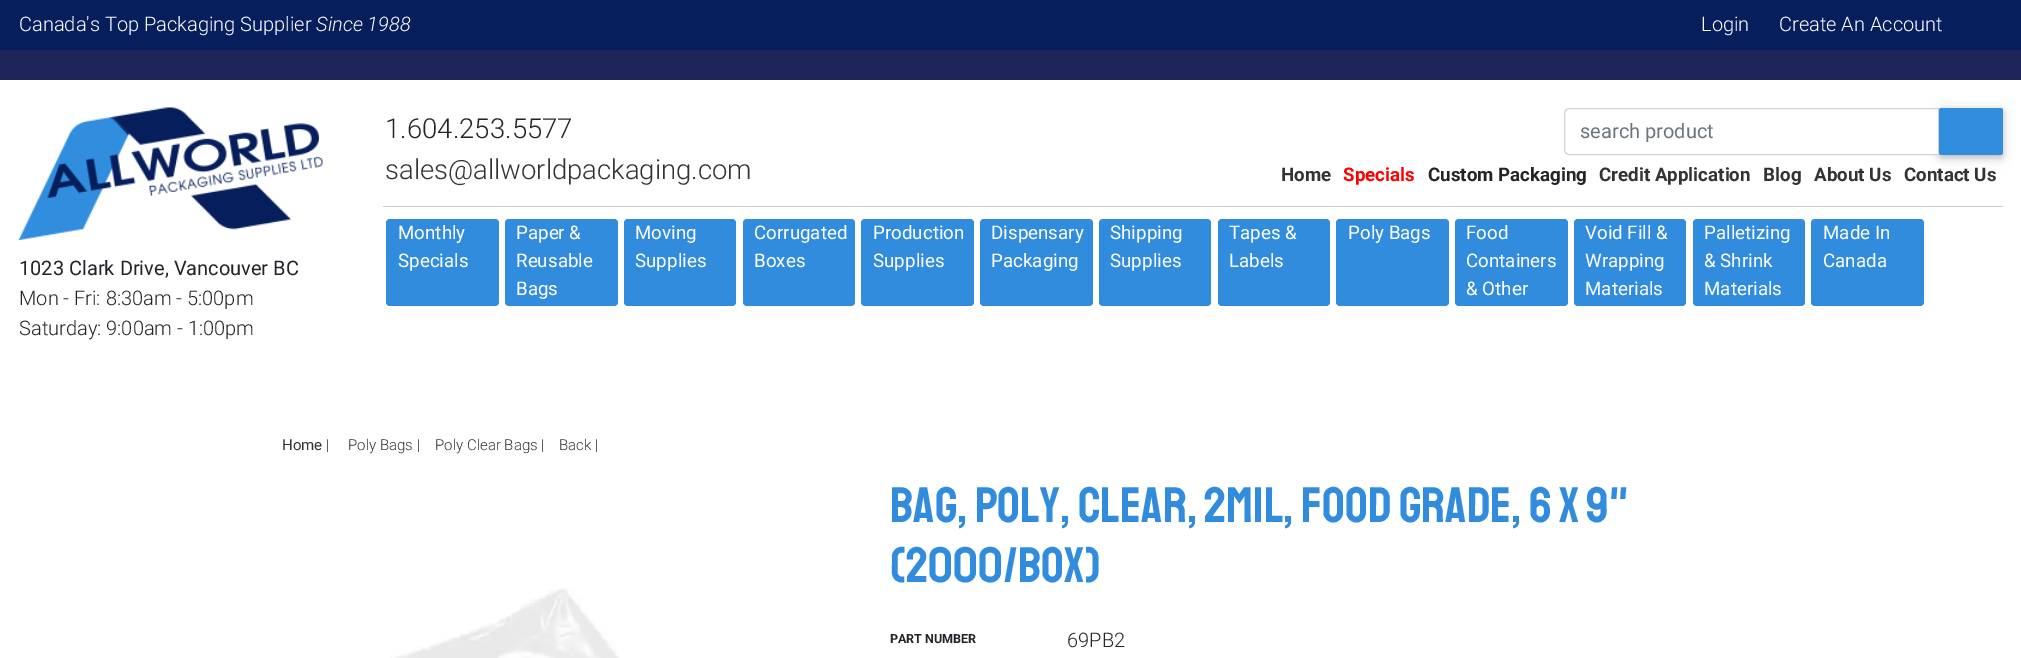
%!PS-Adobe-3.0
%%BoundingBox: 0 0 2021 658
%%LanguageLevel: 3
%%Pages: 1
%%EndComments
%%BeginProlog
/setalpha { dup .setfillconstantalpha .setstrokeconstantalpha } def
/rrect { 5 dict begin { /r /h /w /y /x } { exch def } forall
  x r add y moveto x w add y 2 copy h add r arct x w add y h add x 1 index r arct
  x y h add x y r arct x y 2 copy exch w add exch r arct closepath end } def
/softshadow { 12 dict begin { /a /b /q /h /w /y /x } { exch def } forall gsave /was 0 def
  9 -2 -9 { dup b mul 4 div /e exch def 1 sub .425 mul 2.718 exch exp 1 add a .99 .min exch div /now exch def
    1 1 now sub 1 was sub div sub setalpha /was now def
    w h .min e 2 mul add 0 gt { x e sub y e sub w e 2 mul add h e 2 mul add
      q e add b .6 mul add w h .min 2 div e add .min 0 .max rrect fill } if } for grestore end } def
/drawimage { 5 dict begin { /h /w /y /x /name } { exch def } forall
  gsave x y translate w h scale
  w h 8 [w 0 0 h 0 0] name (r) file false 3 colorimage grestore end } def
%%EndProlog
%%BeginSetup
<< /PageSize [2021 658] /PageUsesTransparency true >> setpagedevice
%%EndSetup
%%Page: 1 1
0 .pushpdf14devicefilter
0 658 translate 1 -1 scale
4 setmiterlimit
0.114 0.145 0.349 setrgbcolor
0 0 2021 658 rectfill
0.024 0.122 0.361 setrgbcolor
0 0 2021 50 rectfill
1 setgray
0 80 2021 578 rectfill
(images/1.raw) 18 107 305 133 drawimage
0 setgray
1939 110 64 48 2.5 6 0.12 softshadow
1939 110 64 48 2.5 3 0.16 softshadow
1 setgray
newpath 1569 108.5 moveto 1938.5 108.5 lineto 1938.5 154.5 lineto 1569 154.5 lineto 1566.5 154.5 1564.5 152.5 1564.5 150 curveto 1564.5 113 lineto 1564.5 110.5 1566.5 108.5 1569 108.5 curveto closepath gsave fill grestore
0.808 0.831 0.855 setrgbcolor
stroke
0.192 0.553 0.871 setrgbcolor
1939 108 64 47 2.5 rrect fill
0.8 setgray
383 206 1620 1 rectfill
0.192 0.549 0.871 setrgbcolor
386 219 113 87 4 rrect fill
505 219 113 87 4 rrect fill
624 219 112 87 4 rrect fill
743 219 112 87 4 rrect fill
861 219 113 87 4 rrect fill
980 219 113 87 4 rrect fill
1099 219 112 87 4 rrect fill
1218 219 112 87 4 rrect fill
1336 219 113 87 4 rrect fill
1455 219 113 87 4 rrect fill
1574 219 112 87 4 rrect fill
1693 219 112 87 4 rrect fill
1811 219 113 87 4 rrect fill
(images/2.raw) 390 588 230 70 drawimage
/Roboto-Light [20 0 0 -20 0 0] selectfont
1 setgray
19 31 moveto (Canada's Top Packaging Supplier) show
/Roboto-LightItalic [20 0 0 -20 0 0] selectfont
316 31 moveto (Since 1988) show
/Roboto-Light [20 0 0 -20 0 0] selectfont
1701 31 moveto (Login) show
1779 31 moveto (Create An Account) show
/Roboto-Regular [20 0 0 -20 0 0] selectfont
0.129 0.145 0.161 setrgbcolor
19 275 moveto (1023 Clark Drive, Vancouver BC) show
/Roboto-Light [20 0 0 -20 0 0] selectfont
19 305 moveto (Mon - Fri: 8:30am - 5:00pm) show
19 335 moveto (Saturday: 9:00am - 1:00pm) show
/Roboto-Light [27.5 0 0 -27.5 0 0] selectfont
385 138 moveto (1.604.253.5577) show
0.2 setgray
385 179 moveto (sales@allworldpackaging.com) show
/Roboto-Regular [20 0 0 -20 0 0] selectfont
0.424 0.459 0.49 setrgbcolor
1580 138 moveto (search product) show
/Roboto-Bold [18.75 0 0 -18.75 0 0] selectfont
0.2 setgray
1281 181 moveto (Home) show
1 0 0 setrgbcolor
1343 181 moveto (Specials) show
0.129 0.145 0.161 setrgbcolor
1428 181 moveto (Custom Packaging) show
0.2 setgray
1599 181 moveto (Credit Application) show
1763 181 moveto (Blog) show
1814 181 moveto (About Us) show
1904 181 moveto (Contact Us) show
/Roboto-Regular [18.75 0 0 -18.75 0 0] selectfont
1 setgray
398 239 moveto (Monthly) show
398 267 moveto (Specials) show
516 239 moveto (Paper &) show
516 267 moveto (Reusable) show
516 295 moveto (Bags) show
635 239 moveto (Moving) show
635 267 moveto (Supplies) show
754 239 moveto (Corrugated) show
754 267 moveto (Boxes) show
873 239 moveto (Production) show
873 267 moveto (Supplies) show
991 239 moveto (Dispensary) show
991 267 moveto (Packaging) show
1110 239 moveto (Shipping) show
1110 267 moveto (Supplies) show
1229 239 moveto (Tapes &) show
1229 267 moveto (Labels) show
1348 239 moveto (Poly Bags) show
1466 239 moveto (Food) show
1466 267 moveto (Containers) show
1466 295 moveto (& Other) show
1585 239 moveto (Void Fill &) show
1585 267 moveto (Wrapping) show
1585 295 moveto (Materials) show
1704 239 moveto (Palletizing) show
1704 267 moveto (& Shrink) show
1704 295 moveto (Materials) show
1823 239 moveto (Made In) show
1823 267 moveto (Canada) show
/Roboto-Regular [15 0 0 -15 0 0] selectfont
0.2 setgray
282 450 moveto (Home) show
/Roboto-Light [15 0 0 -15 0 0] selectfont
0.129 0.145 0.161 setrgbcolor
326 450 moveto (|) show
0.2 setgray
348 450 moveto (Poly Bags) show
0.129 0.145 0.161 setrgbcolor
417 450 moveto (|) show
0.2 setgray
435 450 moveto (Poly Clear Bags) show
0.129 0.145 0.161 setrgbcolor
541 450 moveto (|) show
0.2 setgray
559 450 moveto (Back) show
0.129 0.145 0.161 setrgbcolor
595 450 moveto (|) show
/Staatliches-Regular [50 0 0 -50 0 0] selectfont
0.192 0.549 0.871 setrgbcolor
890 522 moveto (Bag, Poly, Clear, 2mil, Food grade, 6 x 9") show
890 582 moveto (\(2000/Box\)) show
/Roboto-Bold [12.5 0 0 -12.5 0 0] selectfont
0.129 0.145 0.161 setrgbcolor
890 643 moveto (PART NUMBER) show
/Roboto-Light [20 0 0 -20 0 0] selectfont
1067 647 moveto (69PB2) show
.poppdf14devicefilter showpage
%%EOF
